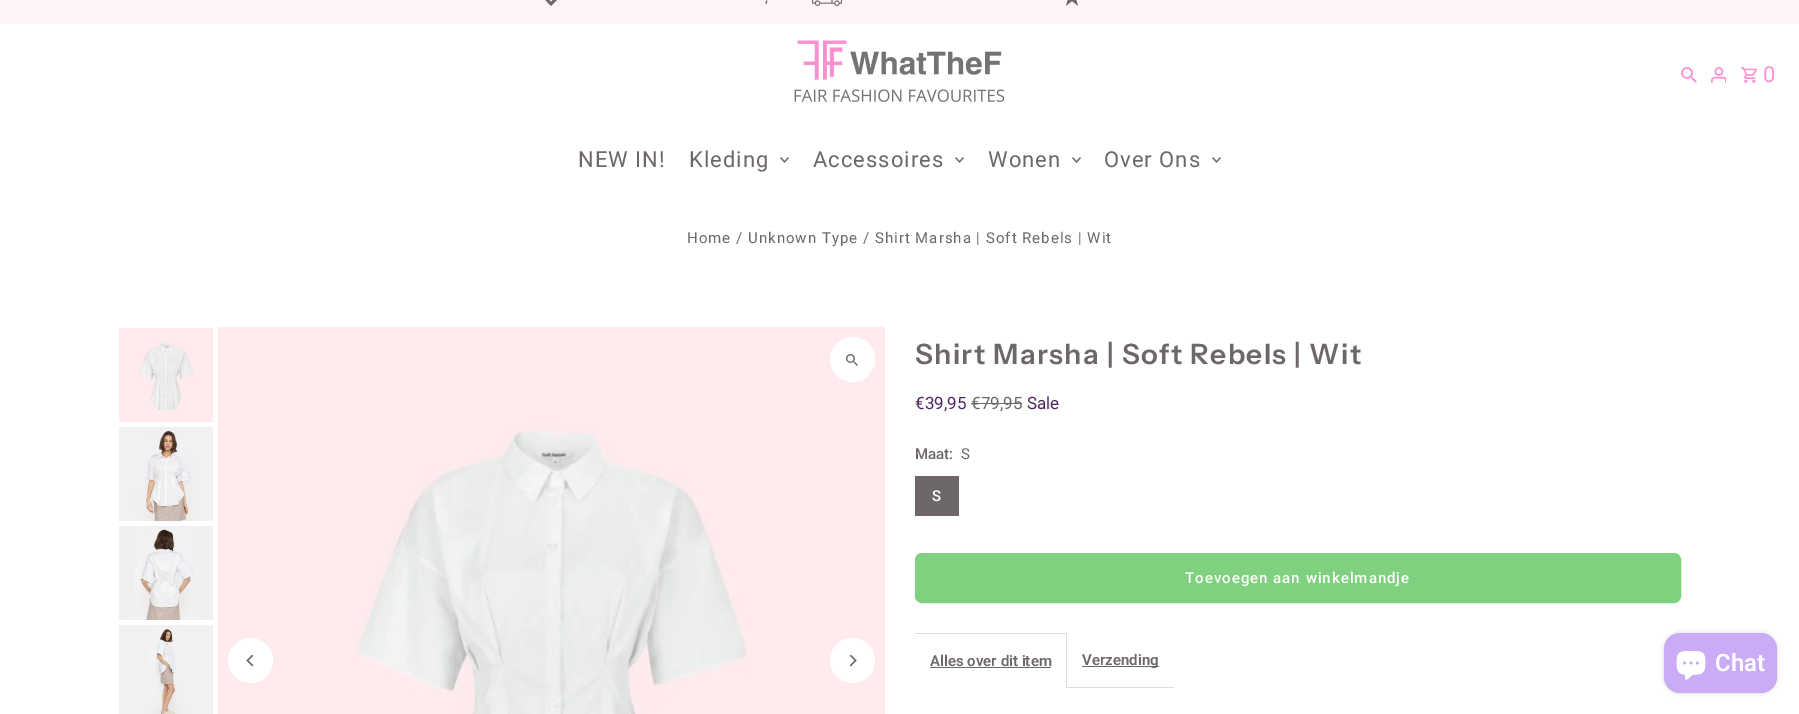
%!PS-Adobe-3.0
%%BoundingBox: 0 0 1799 714
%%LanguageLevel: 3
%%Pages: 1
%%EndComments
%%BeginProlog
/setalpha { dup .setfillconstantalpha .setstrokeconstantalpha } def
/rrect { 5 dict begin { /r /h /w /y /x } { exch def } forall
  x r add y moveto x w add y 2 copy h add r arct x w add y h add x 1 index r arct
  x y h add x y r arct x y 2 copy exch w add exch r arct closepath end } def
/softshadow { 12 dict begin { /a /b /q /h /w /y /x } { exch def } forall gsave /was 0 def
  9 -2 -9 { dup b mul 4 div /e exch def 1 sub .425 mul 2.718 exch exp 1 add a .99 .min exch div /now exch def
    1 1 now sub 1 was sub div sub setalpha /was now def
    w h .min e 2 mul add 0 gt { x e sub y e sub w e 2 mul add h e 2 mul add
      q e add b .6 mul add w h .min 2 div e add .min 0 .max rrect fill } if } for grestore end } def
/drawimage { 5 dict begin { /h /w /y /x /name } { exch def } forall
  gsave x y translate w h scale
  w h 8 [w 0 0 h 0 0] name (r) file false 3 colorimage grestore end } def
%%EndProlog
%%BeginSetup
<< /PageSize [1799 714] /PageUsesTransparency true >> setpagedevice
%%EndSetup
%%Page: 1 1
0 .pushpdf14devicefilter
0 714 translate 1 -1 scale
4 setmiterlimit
1 setgray
0 0 1799 714 rectfill
0.996 0.953 0.961 setrgbcolor
0 0 1799 24 rectfill
0.431 0.404 0.404 setrgbcolor
newpath 551 2 moveto 545 -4.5 lineto 543 -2.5 lineto 551 6 lineto 568.5 -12 lineto 566.5 -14 lineto closepath fill
(images/1.raw) 812 0 30 6 drawimage
(images/2.raw) 1065 0 14 6 drawimage
(images/3.raw) 794 40 211 62 drawimage
(images/4.raw) 1681 67 16 16 drawimage
(images/5.raw) 1711 67 15 16 drawimage
(images/6.raw) 1741 67 16 16 drawimage
(images/7.raw) 780 157 9 6 drawimage
(images/7.raw) 955 157 9 6 drawimage
(images/7.raw) 1072 157 9 6 drawimage
(images/7.raw) 1212 157 9 6 drawimage
(images/8.raw) 119 328 94 94 drawimage
(images/9.raw) 119 427 94 94 drawimage
(images/10.raw) 119 526 94 94 drawimage
(images/11.raw) 119 625 94 89 drawimage
(images/12.raw) 218 327 667 387 drawimage
1 setgray
newpath 852.5 359.5 22.5 0 360 arc closepath fill
(images/13.raw) 846 354 12 12 drawimage
newpath 250.5 660.5 22.5 0 360 arc closepath fill
(images/14.raw) 246 655 8 12 drawimage
newpath 852.5 660.5 22.5 0 360 arc closepath fill
(images/15.raw) 849 655 8 12 drawimage
0.431 0.404 0.404 setrgbcolor
971 403 51 1 rectfill
915 476 44 40 rectfill
0.498 0.82 0.502 setrgbcolor
916 554 764 48 6 rrect gsave fill grestore
2 setlinewidth
stroke
0.867 setgray
1066 633 1 55 rectfill
915 633 151 1 rectfill
0.431 0.404 0.404 setrgbcolor
930 667 121 1 rectfill
0.867 setgray
1067 687 107 1 rectfill
0.431 0.404 0.404 setrgbcolor
1082 666 77 1 rectfill
0 setgray
1664 633 113 60 16 2.5 0.15 softshadow
0.788 0.675 0.961 setrgbcolor
1664 633 113 60 16 rrect fill
(images/16.raw) 1676 651 30 29 drawimage
/Roboto-Regular [15 0 0 -15 0 0] selectfont
0.431 0.404 0.404 setrgbcolor
765 2 moveto (,) show
/Roboto-Regular [22 0 0 -22 0 0] selectfont
0.996 0.561 0.82 setrgbcolor
1763 82 moveto 1 0 (0) ashow
0.431 0.404 0.404 setrgbcolor
578 167 moveto 1 0 (NEW IN!) ashow
689 167 moveto 1 0 (Kleding) ashow
813 167 moveto 1 0 (Accessoires) ashow
988 167 moveto 1 0 (Wonen) ashow
1104 167 moveto 1 0 (Over Ons) ashow
/Roboto-Regular [15 0 0 -15 0 0] selectfont
687 243 moveto 1 0 (Home / Unknown Type / Shirt Marsha | Soft Rebels | Wit) ashow
/InstrumentSans-SemiBold [28 0 0 -28 0 0] selectfont
915 364 moveto 1.4 0 (Shirt Marsha | Soft Rebels | Wit) ashow
/Roboto-Regular [17 0 0 -17 0 0] selectfont
0.302 0.153 0.388 setrgbcolor
915 409 moveto (€39,95) show
0.431 0.404 0.404 setrgbcolor
971 409 moveto (€79,95) show
0.302 0.153 0.388 setrgbcolor
1027 409 moveto (Sale) show
/Roboto-Medium [15 0 0 -15 0 0] selectfont
0.431 0.404 0.404 setrgbcolor
915 459 moveto (Maat:) show
/Roboto-Regular [15 0 0 -15 0 0] selectfont
961 459 moveto (S) show
/Roboto-Medium [15 0 0 -15 0 0] selectfont
1 setgray
932 501 moveto (S) show
1185 583 moveto 1 0 (Toevoegen aan winkelmandje) ashow
/Roboto-SemiBold [15 0 0 -15 0 0] selectfont
0.431 0.404 0.404 setrgbcolor
930 666 moveto (Alles over dit item) show
1082 665 moveto (Verzending) show
/Roboto-SemiBold [24 0 0 -24 0 0] selectfont
1 setgray
1715 671 moveto (Chat) show
.poppdf14devicefilter showpage
%%EOF
